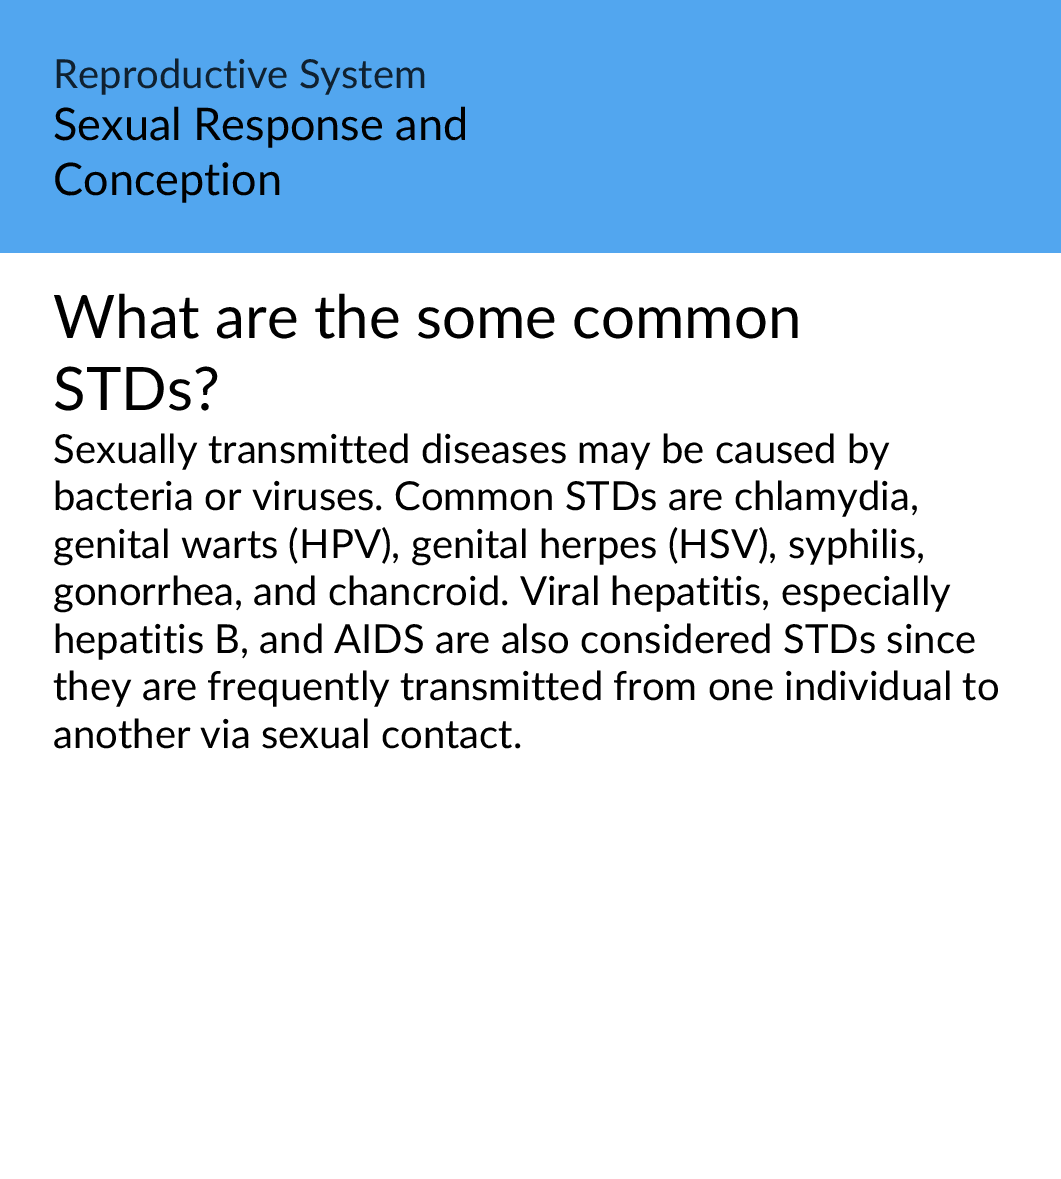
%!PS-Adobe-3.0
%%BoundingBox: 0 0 1061 1179
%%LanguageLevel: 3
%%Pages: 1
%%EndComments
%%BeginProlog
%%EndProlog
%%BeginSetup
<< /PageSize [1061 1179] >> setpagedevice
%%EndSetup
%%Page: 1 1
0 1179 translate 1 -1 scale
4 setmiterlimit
1 setgray
0 0 1061 1179 rectfill
0.322 0.651 0.937 setrgbcolor
0 0 1061 253 rectfill
/Lato-Regular [40 0 0 -40 0 0] selectfont
0.063 0.129 0.188 setrgbcolor
53 88 moveto (Reproductive System) show
/Lato-Regular [45 0 0 -45 0 0] selectfont
0 setgray
53 140 moveto (Sexual Response and) show
53 195 moveto (Conception) show
/Lato-Regular [60 0 0 -60 0 0] selectfont
53 338 moveto (What are the some common) show
53 410 moveto (STDs?) show
/Lato-Regular [40 0 0 -40 0 0] selectfont
53 463 moveto (Sexually transmitted diseases may be caused by) show
53 510 moveto (bacteria or viruses. Common STDs are chlamydia,) show
53 558 moveto (genital warts \(HPV\), genital herpes \(HSV\), syphilis,) show
53 605 moveto (gonorrhea, and chancroid. Viral hepatitis, especially) show
53 653 moveto (hepatitis B, and AIDS are also considered STDs since) show
53 700 moveto (they are frequently transmitted from one individual to) show
53 748 moveto (another via sexual contact.) show
showpage
%%EOF
